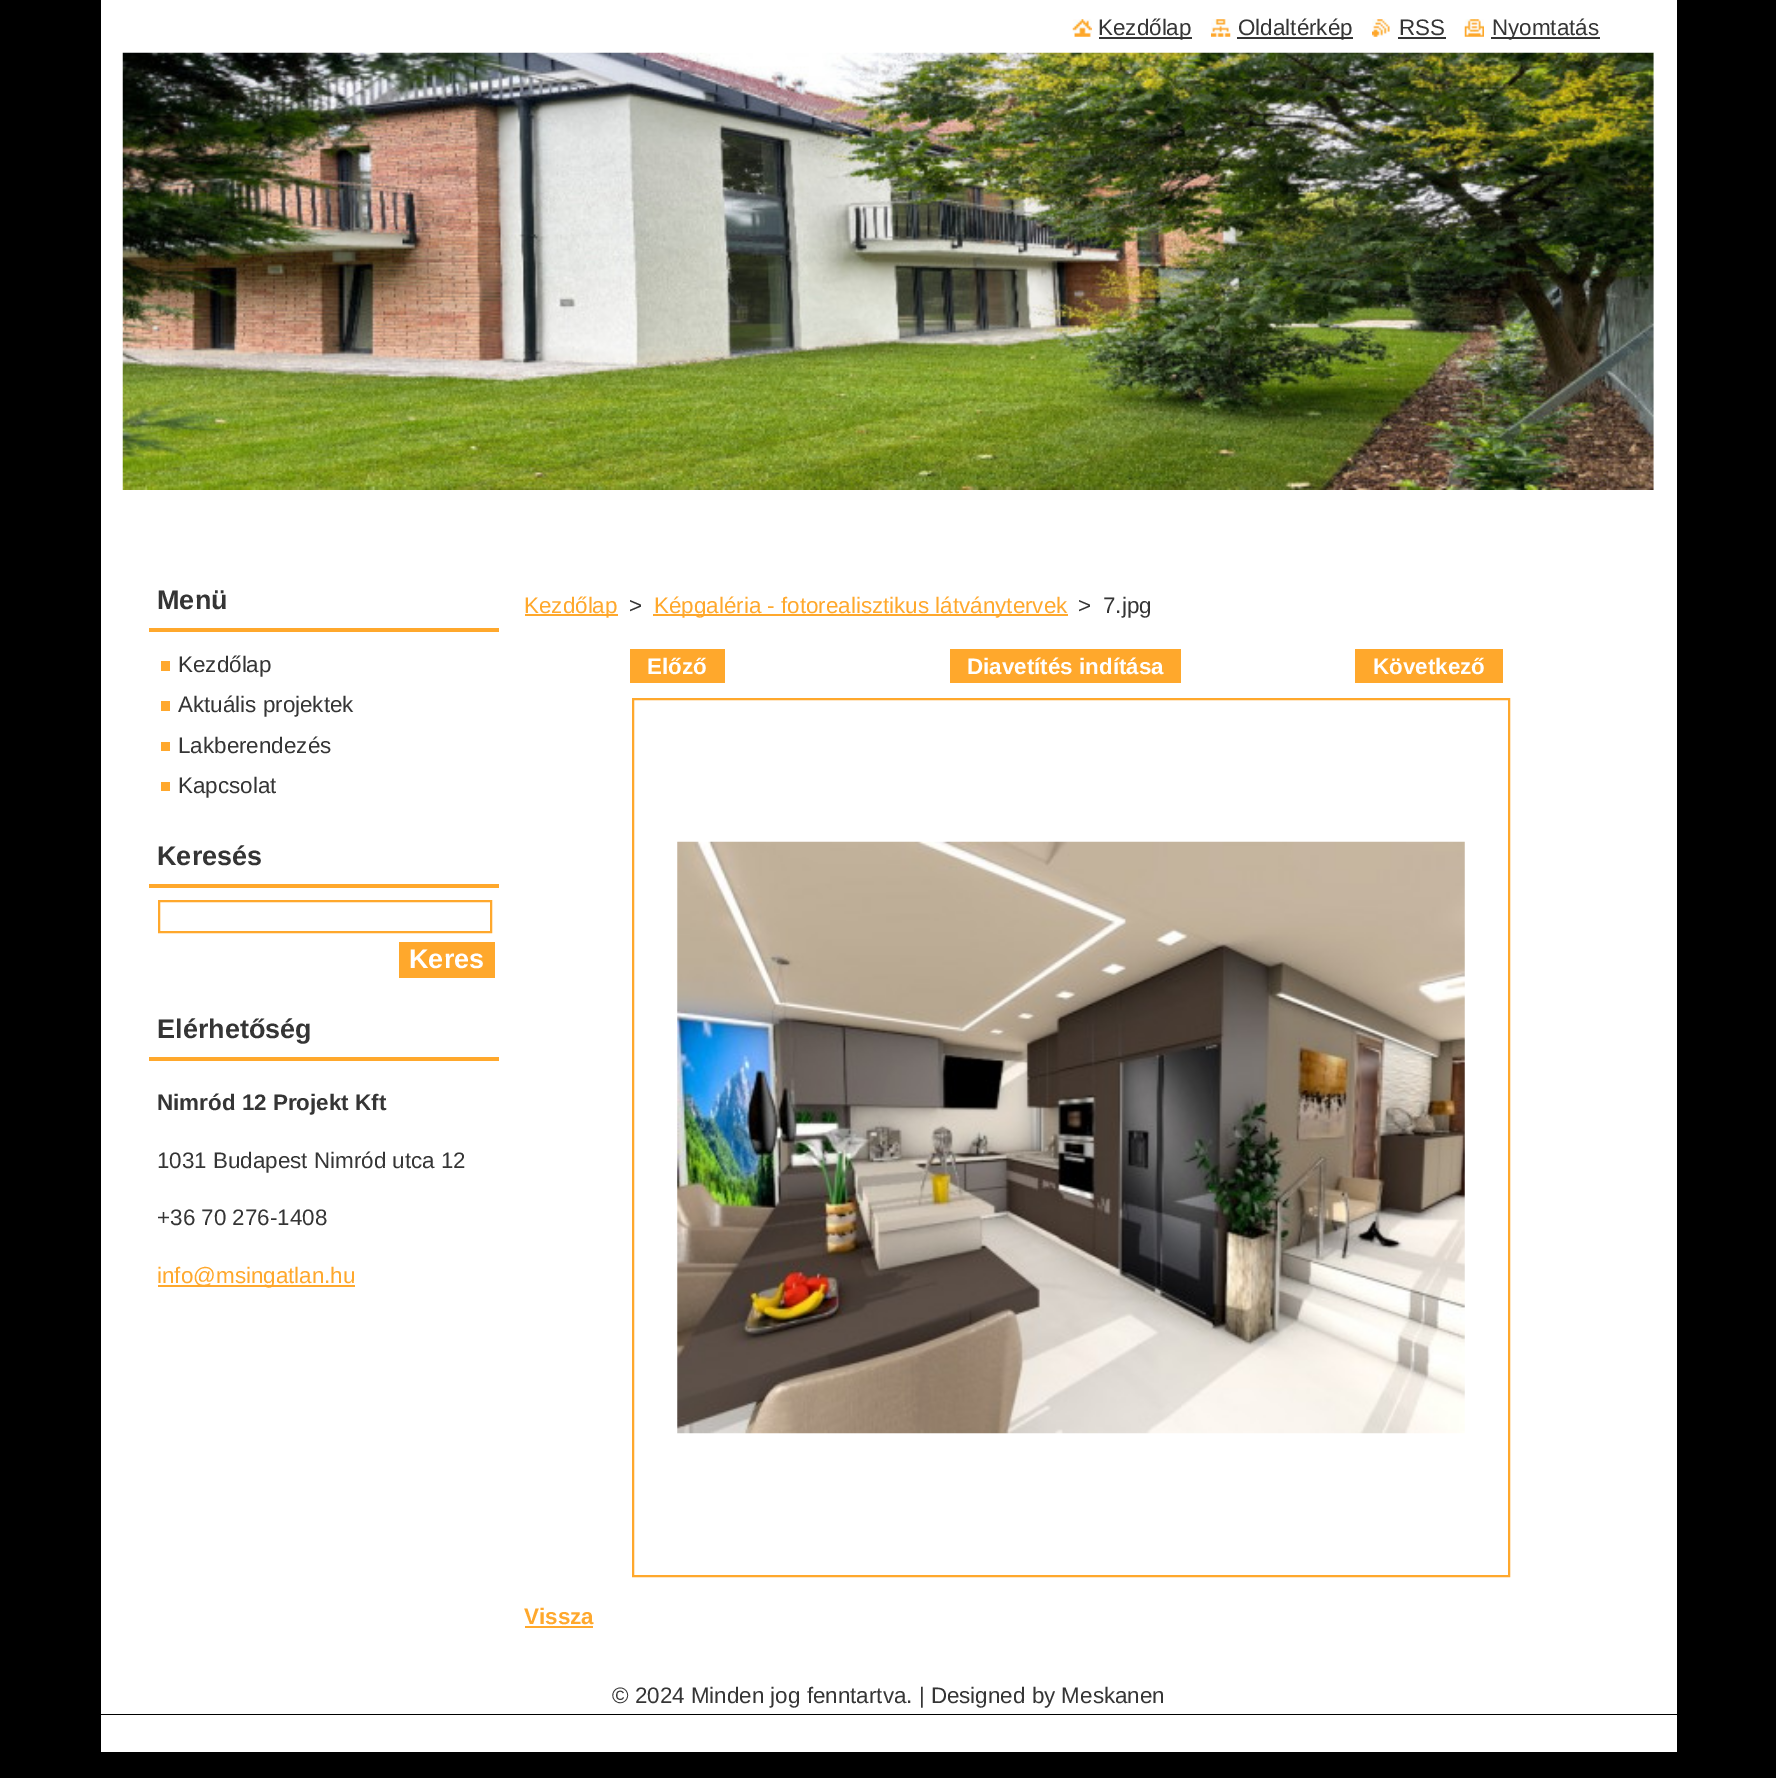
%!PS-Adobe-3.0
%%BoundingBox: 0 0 1776 1778
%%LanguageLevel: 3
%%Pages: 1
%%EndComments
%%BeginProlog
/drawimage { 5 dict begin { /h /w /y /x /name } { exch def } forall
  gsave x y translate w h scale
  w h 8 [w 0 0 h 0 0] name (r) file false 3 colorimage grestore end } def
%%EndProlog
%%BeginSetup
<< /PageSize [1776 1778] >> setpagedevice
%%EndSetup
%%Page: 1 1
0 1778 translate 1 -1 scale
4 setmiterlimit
0 setgray
0 0 1776 1778 rectfill
1 setgray
101 0 1576 1714 rectfill
(images/1.raw) 1072 19 20 18 drawimage
0.208 setgray
1099 37 93 2 rectfill
(images/2.raw) 1211 19 20 18 drawimage
1237 37 116 2 rectfill
(images/3.raw) 1372 19 18 18 drawimage
1398 37 48 2 rectfill
(images/4.raw) 1464 19 20 18 drawimage
1491 37 109 2 rectfill
(images/5.raw) 122 52 1532 438 drawimage
1 0.659 0.173 setrgbcolor
149 628 350 4 rectfill
1 0.659 0.176 setrgbcolor
161 661 9 10 rectfill
161 701 9 10 rectfill
161 742 9 9 rectfill
161 782 9 9 rectfill
1 0.659 0.173 setrgbcolor
149 884 350 4 rectfill
2 setlinewidth
159 901 332 31 rectstroke
399 942 96 36 rectfill
149 1057 350 4 rectfill
158 1285 197 2 rectfill
525 614 93 2 rectfill
653 614 415 2 rectfill
630 649 95 34 rectfill
950 649 231 34 rectfill
1355 649 148 34 rectfill
633 699 876 877 rectstroke
(images/6.raw) 677 841 788 593 drawimage
525 1626 68 2 rectfill
1 setgray
101 1715 1576 37 rectfill
/LiberationSans-Regular [22.4 0 0 -22.4 0 0] selectfont
0.208 setgray
1098 35 moveto (Kezdőlap) show
1238 35 moveto (Oldaltérkép) show
1399 35 moveto (RSS) show
1492 35 moveto (Nyomtatás) show
/LiberationSans-Bold [27 0 0 -27 0 0] selectfont
157 609 moveto (Menü) show
/LiberationSans-Regular [22.4 0 0 -22.4 0 0] selectfont
178 672 moveto (Kezdőlap) show
178 712 moveto (Aktuális projektek) show
178 753 moveto (Lakberendezés) show
178 793 moveto (Kapcsolat) show
/LiberationSans-Bold [27 0 0 -27 0 0] selectfont
157 865 moveto (Keresés) show
1 setgray
409 968 moveto (Keres) show
0.208 setgray
157 1038 moveto (Elérhetőség) show
/LiberationSans-Bold [22.4 0 0 -22.4 0 0] selectfont
157 1110 moveto (Nimród 12 Projekt Kft) show
/LiberationSans-Regular [22.4 0 0 -22.4 0 0] selectfont
157 1168 moveto (1031 Budapest Nimród utca 12) show
157 1225 moveto (+36 70 276-1408) show
1 0.659 0.173 setrgbcolor
157 1283 moveto (info@msingatlan.hu) show
524 613 moveto (Kezdőlap) show
0.208 setgray
629 613 moveto (>) show
1 0.659 0.173 setrgbcolor
654 613 moveto (Képgaléria - fotorealisztikus látványtervek) show
0.208 setgray
1078 613 moveto (>) show
1103 613 moveto (7.jpg) show
/LiberationSans-Bold [22.4 0 0 -22.4 0 0] selectfont
1 setgray
647 674 moveto (Előző) show
967 674 moveto (Diavetítés indítása) show
1373 674 moveto (Következő) show
1 0.659 0.173 setrgbcolor
524 1624 moveto (Vissza) show
/LiberationSans-Regular [22.4 0 0 -22.4 0 0] selectfont
0.208 setgray
612 1703 moveto (© 2024 Minden jog fenntartva. | Designed by Meskanen) show
showpage
%%EOF
